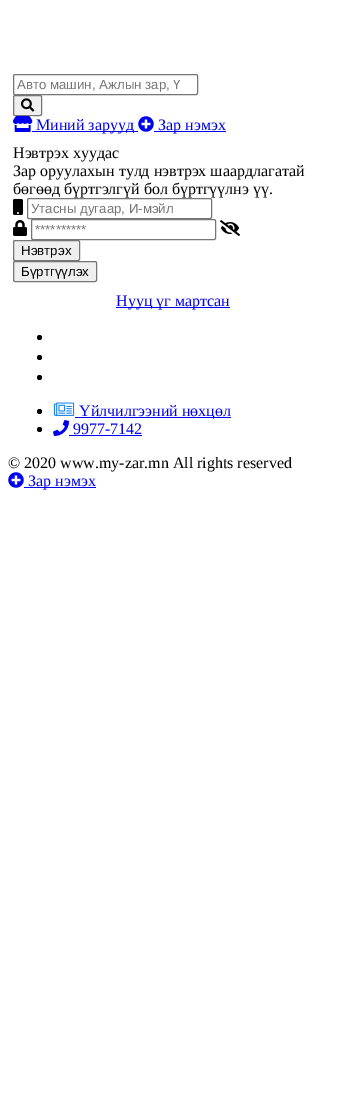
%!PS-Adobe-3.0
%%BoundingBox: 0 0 356 1099
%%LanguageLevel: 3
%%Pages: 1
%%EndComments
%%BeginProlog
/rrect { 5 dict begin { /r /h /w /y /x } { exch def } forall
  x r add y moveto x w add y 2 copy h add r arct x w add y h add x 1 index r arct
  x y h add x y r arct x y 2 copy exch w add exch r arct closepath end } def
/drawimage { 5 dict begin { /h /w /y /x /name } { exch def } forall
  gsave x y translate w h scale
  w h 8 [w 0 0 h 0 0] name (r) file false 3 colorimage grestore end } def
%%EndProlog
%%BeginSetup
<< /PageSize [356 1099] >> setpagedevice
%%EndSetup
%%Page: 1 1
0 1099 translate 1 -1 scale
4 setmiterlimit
1 setgray
0 0 356 1099 rectfill
0.463 setgray
13.5 74.5 184 20 1.5 rrect stroke
0.937 setgray
13.5 95.5 28 20 1.5 rrect gsave fill grestore
0.463 setgray
stroke
(images/1.raw) 21 98 14 14 drawimage
(images/2.raw) 13 116 20 16 drawimage
0 0 0.933 setrgbcolor
32 131 106 1 rectfill
(images/3.raw) 138 116 16 16 drawimage
154 131 72 1 rectfill
(images/4.raw) 13 199 10 16 drawimage
0.463 setgray
27.5 198.5 184 20 1.5 rrect stroke
(images/5.raw) 13 220 14 16 drawimage
31.5 219.5 184 20 1.5 rrect stroke
(images/6.raw) 220 220 20 16 drawimage
0.937 setgray
13.5 240.5 66 20 1.5 rrect gsave fill grestore
0.463 setgray
stroke
0.937 setgray
13.5 261.5 83 20 1.5 rrect gsave fill grestore
0.463 setgray
stroke
0 0 0.933 setrgbcolor
116 307 114 1 rectfill
0 setgray
newpath 39.5 337.5 2.5 0 360 arc closepath fill
newpath 39.5 357.5 2.5 0 360 arc closepath fill
newpath 39.5 377.5 2.5 0 360 arc closepath fill
newpath 39.5 411.5 2.5 0 360 arc closepath fill
(images/7.raw) 53 402 22 14 drawimage
0 0 0.933 setrgbcolor
75 417 156 1 rectfill
0 setgray
newpath 39.5 429.5 2.5 0 360 arc closepath fill
(images/8.raw) 53 420 16 16 drawimage
0 0 0.933 setrgbcolor
69 435 73 1 rectfill
(images/3.raw) 8 472 16 16 drawimage
24 487 72 1 rectfill
/LiberationSans-Regular [13.25 0 0 -13.25 0 0] selectfont
0.459 setgray
17 89 moveto (Авто машин, Ажлын зар, Ү) show
/LiberationSerif-Regular [16 0 0 -16 0 0] selectfont
0 0 0.933 setrgbcolor
36 130 moveto (Миний зарууд) show
158 130 moveto (Зар нэмэх) show
0 setgray
13 158 moveto (Нэвтрэх хуудас) show
13 176 moveto (Зар оруулахын тулд нэвтрэх шаардлагатай) show
13 194 moveto (бөгөөд бүртгэлгүй бол бүртгүүлнэ үү.) show
/LiberationSans-Regular [13.25 0 0 -13.25 0 0] selectfont
0.459 setgray
31 213 moveto (Утасны дугаар, И-мэйл) show
35 234 moveto (**********) show
0 setgray
21 255 moveto (Нэвтрэх) show
21 276 moveto (Бүртгүүлэх) show
/LiberationSerif-Regular [16 0 0 -16 0 0] selectfont
0 0 0.933 setrgbcolor
116 306 moveto (Нууц үг мартсан) show
79 416 moveto (Үйлчилгээний нөхцөл) show
73 434 moveto (9977-7142) show
0 setgray
8 468 moveto (© 2020 www.my-zar.mn All rights reserved) show
0 0 0.933 setrgbcolor
28 486 moveto (Зар нэмэх) show
showpage
%%EOF
